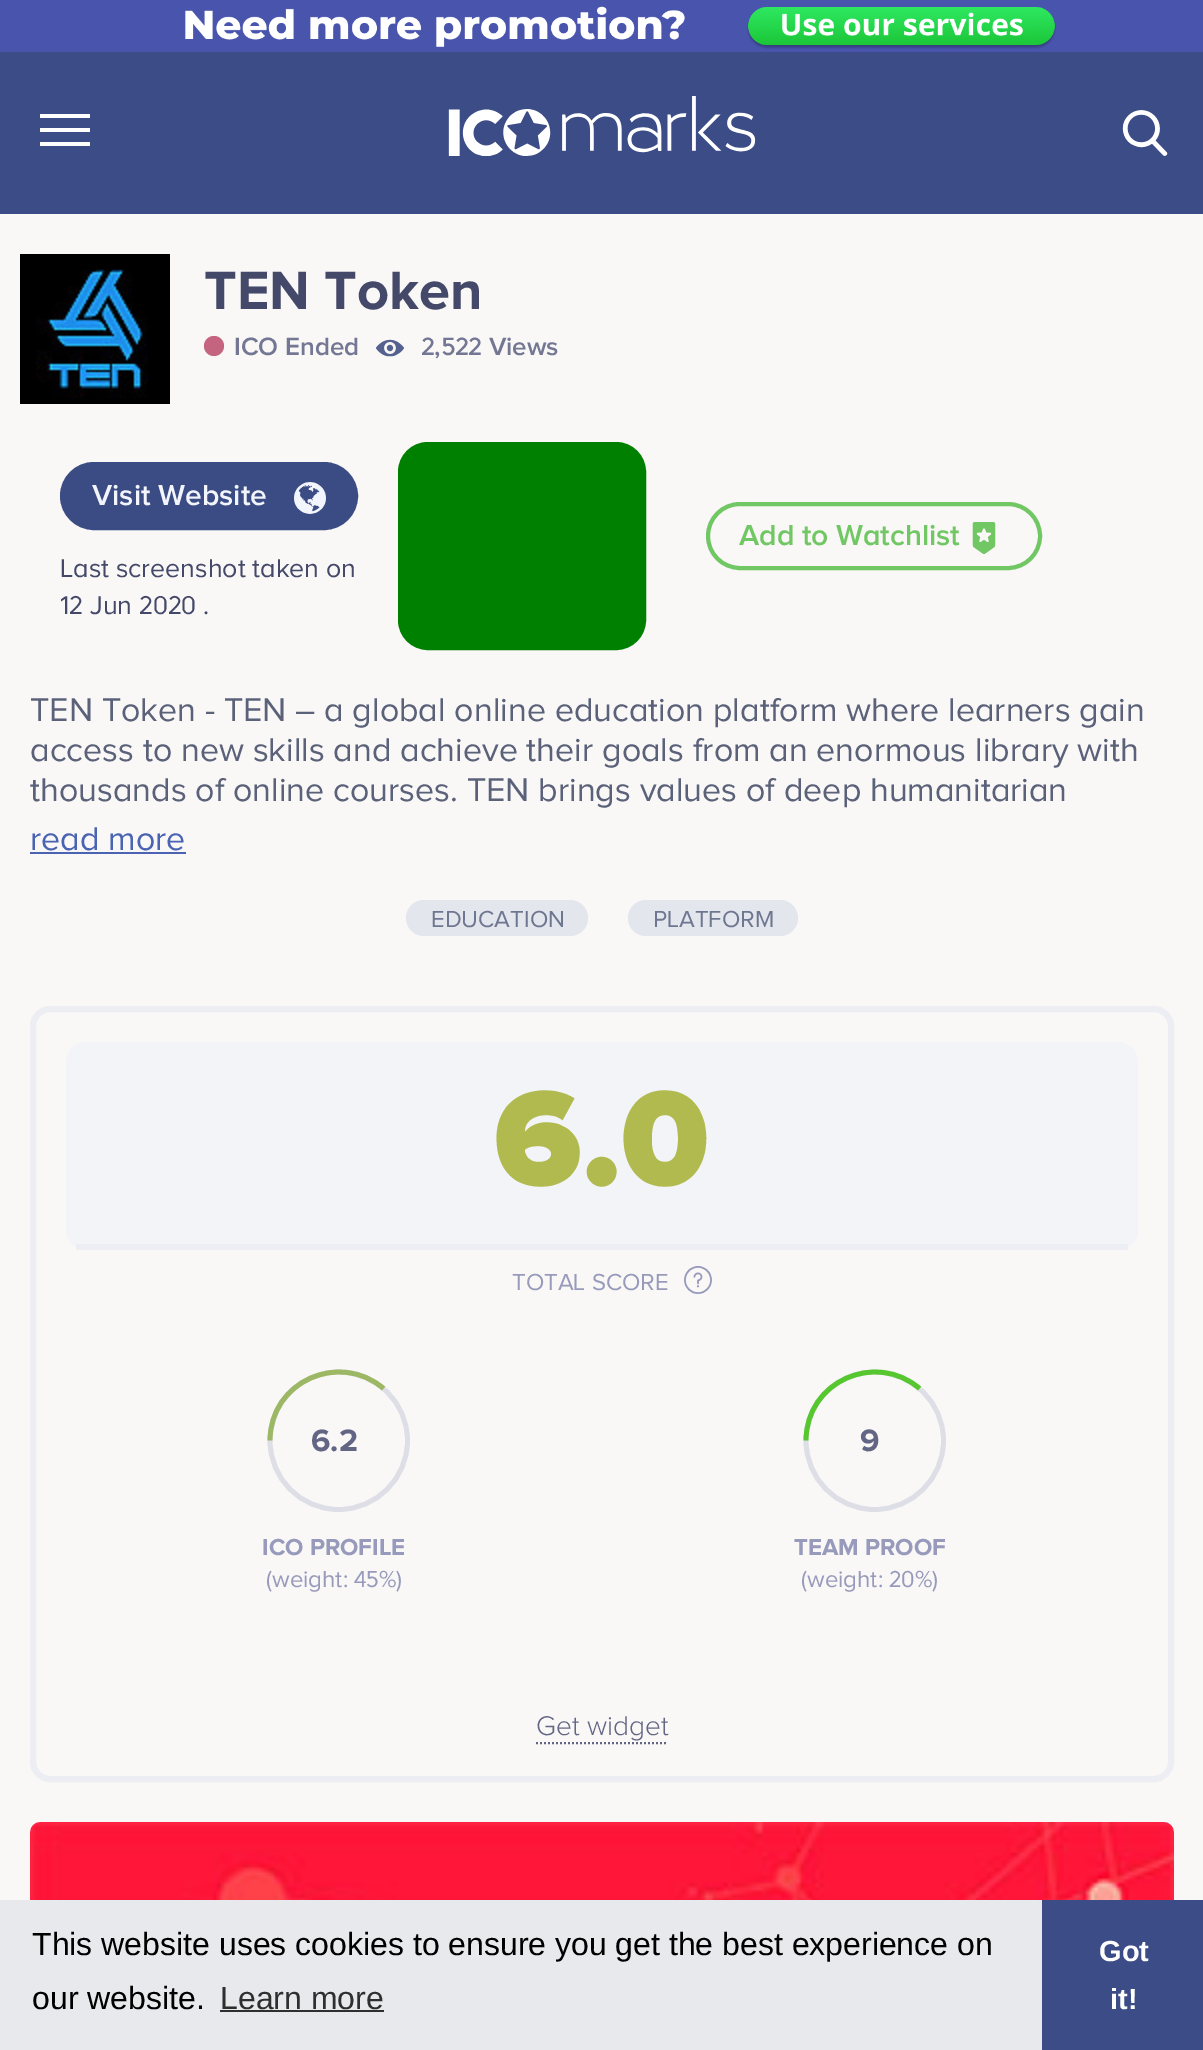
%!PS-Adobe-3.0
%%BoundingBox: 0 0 1203 2050
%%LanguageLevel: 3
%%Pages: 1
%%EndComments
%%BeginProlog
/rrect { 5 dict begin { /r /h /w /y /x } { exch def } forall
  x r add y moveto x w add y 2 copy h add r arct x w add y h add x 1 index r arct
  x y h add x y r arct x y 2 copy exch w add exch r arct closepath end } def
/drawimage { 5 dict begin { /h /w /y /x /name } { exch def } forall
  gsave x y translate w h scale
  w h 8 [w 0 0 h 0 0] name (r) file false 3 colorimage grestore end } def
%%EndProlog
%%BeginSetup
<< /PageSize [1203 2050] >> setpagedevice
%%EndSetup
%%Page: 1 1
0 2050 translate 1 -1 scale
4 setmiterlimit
0.976 0.973 0.969 setrgbcolor
0 0 1203 2050 rectfill
(images/1.raw) 0 0 1203 52 drawimage
0.231 0.298 0.525 setrgbcolor
0 52 1203 162 rectfill
1 setgray
40 114 50 4 rectfill
40 128 50 4 rectfill
40 142 50 4 rectfill
(images/2.raw) 448 96 308 60 drawimage
(images/3.raw) 1122 110 46 46 drawimage
(images/4.raw) 20 254 150 150 drawimage
0.773 0.392 0.498 setrgbcolor
newpath 214 346 10 0 360 arc closepath fill
(images/5.raw) 376 339 28 18 drawimage
0.231 0.298 0.522 setrgbcolor
62 464 294 64 32 rrect gsave fill grestore
4 setlinewidth
stroke
(images/6.raw) 294 482 32 32 drawimage
0 0.502 0 setrgbcolor
400 444 244 204 28 rrect gsave fill grestore
stroke
0.443 0.78 0.392 setrgbcolor
708 504 332 64 32 rrect stroke
(images/7.raw) 972 522 24 32 drawimage
0.294 0.388 0.702 setrgbcolor
30 852 156 2 rectfill
0.89 0.902 0.925 setrgbcolor
406 900 182 36 18 rrect fill
628 900 170 36 18 rrect fill
0.925 0.933 0.953 setrgbcolor
6 setlinewidth
33 1009 1138 770 17 rrect stroke
0.953 0.957 0.969 setrgbcolor
66 1042 1072 208 20 rrect fill
0.925 0.933 0.953 setrgbcolor
76 1244 1052 6 rectfill
(images/8.raw) 684 1266 28 28 drawimage
0.384 0.396 0.518 setrgbcolor
2 setlinewidth
[2 2] 0 setdash
newpath 536 1743 moveto 668 1743 lineto stroke
(images/9.raw) 30 1822 1144 78 drawimage
0.906 0.914 0.929 setrgbcolor
0 1900 1042 150 rectfill
0.18 0.184 0.184 setrgbcolor
220 2010 164 2 rectfill
0.231 0.298 0.525 setrgbcolor
1042 1900 161 150 rectfill
/ProximaNova-Bold [56 0 0 -56 0 0] selectfont
0.267 0.286 0.412 setrgbcolor
204 309 moveto (TEN Token) show
/ProximaNova-SemiBold [26 0 0 -26 0 0] selectfont
0.455 0.467 0.58 setrgbcolor
234 355 moveto (ICO Ended) show
421 355 moveto (2,522 Views) show
/ProximaNova-SemiBold [30 0 0 -30 0 0] selectfont
0.953 0.961 0.988 setrgbcolor
92 505 moveto (Visit Website) show
/ProximaNova-Regular [26.75 0 0 -26.75 0 0] selectfont
0.267 0.286 0.412 setrgbcolor
60 577 moveto (Last screenshot taken on) show
60 614 moveto (12 Jun 2020 .) show
/ProximaNova-SemiBold [30 0 0 -30 0 0] selectfont
0.443 0.78 0.392 setrgbcolor
739 545 moveto (Add to Watchlist) show
/ProximaNova-Regular [34 0 0 -34 0 0] selectfont
0.353 0.38 0.475 setrgbcolor
30 721 moveto (TEN Token - TEN – a global online education platform where learners gain) show
30 761 moveto (access to new skills and achieve their goals from an enormous library with) show
30 801 moveto (thousands of online courses. TEN brings values of deep humanitarian) show
0.294 0.388 0.702 setrgbcolor
30 850 moveto (read more) show
/ProximaNova-Regular [24 0 0 -24 0 0] selectfont
0.431 0.463 0.565 setrgbcolor
431 927 moveto (EDUCATION) show
653 927 moveto (PLATFORM) show
/ProximaNova-Black [140 0 0 -140 0 0] selectfont
0.694 0.729 0.306 setrgbcolor
494 1185 moveto (6.0) show
/ProximaNova-Regular [24 0 0 -24 0 0] selectfont
0.592 0.604 0.733 setrgbcolor
512 1290 moveto (TOTAL SCORE) show
/ProximaNova-Bold [32 0 0 -32 0 0] selectfont
0.384 0.396 0.518 setrgbcolor
311 1451 moveto (6.2) show
0.867 0.871 0.902 setrgbcolor
4.8 setlinewidth
[] 0 setdash
newpath 270 1440.5 moveto 270 1402.5 300.5 1372 338.5 1372 curveto 376.5 1372 407.5 1402.5 407.5 1440.5 curveto 407.5 1478.5 376.5 1509.5 338.5 1509.5 curveto 300.5 1509.5 270 1478.5 270 1440.5 curveto stroke
0.616 0.722 0.392 setrgbcolor
newpath 270 1440.5 moveto 270 1381 340 1351 383.5 1388.5 curveto stroke
/ProximaNova-Bold [24 0 0 -24 0 0] selectfont
0.592 0.604 0.733 setrgbcolor
262 1555 moveto (ICO PROFILE) show
/ProximaNova-Regular [24 0 0 -24 0 0] selectfont
266 1587 moveto (\(weight: 45%\)) show
/ProximaNova-Bold [32 0 0 -32 0 0] selectfont
0.384 0.396 0.518 setrgbcolor
860 1451 moveto (9) show
0.867 0.871 0.902 setrgbcolor
newpath 806 1440.5 moveto 806 1402.5 836.5 1372 874.5 1372 curveto 912.5 1372 943.5 1402.5 943.5 1440.5 curveto 943.5 1478.5 912.5 1509.5 874.5 1509.5 curveto 836.5 1509.5 806 1478.5 806 1440.5 curveto stroke
0.341 0.78 0.188 setrgbcolor
newpath 806 1440.5 moveto 806 1381 876 1351 919.5 1388.5 curveto stroke
/ProximaNova-Bold [24 0 0 -24 0 0] selectfont
0.592 0.604 0.733 setrgbcolor
794 1555 moveto (TEAM PROOF) show
/ProximaNova-Regular [24 0 0 -24 0 0] selectfont
801 1587 moveto (\(weight: 20%\)) show
/ProximaNova-Light [28 0 0 -28 0 0] selectfont
0.384 0.396 0.518 setrgbcolor
536 1735 moveto (Get widget) show
/LiberationSans-Regular [32 0 0 -32 0 0] selectfont
0 setgray
32 1955 moveto (This website uses cookies to ensure you get the best experience on) show
32 2009 moveto (our website.) show
0.18 0.184 0.184 setrgbcolor
220 2009 moveto (Learn more) show
/LiberationSans-Bold [29 0 0 -29 0 0] selectfont
1 setgray
1099 1961 moveto (Got) show
1110 2009 moveto (it!) show
showpage
%%EOF
